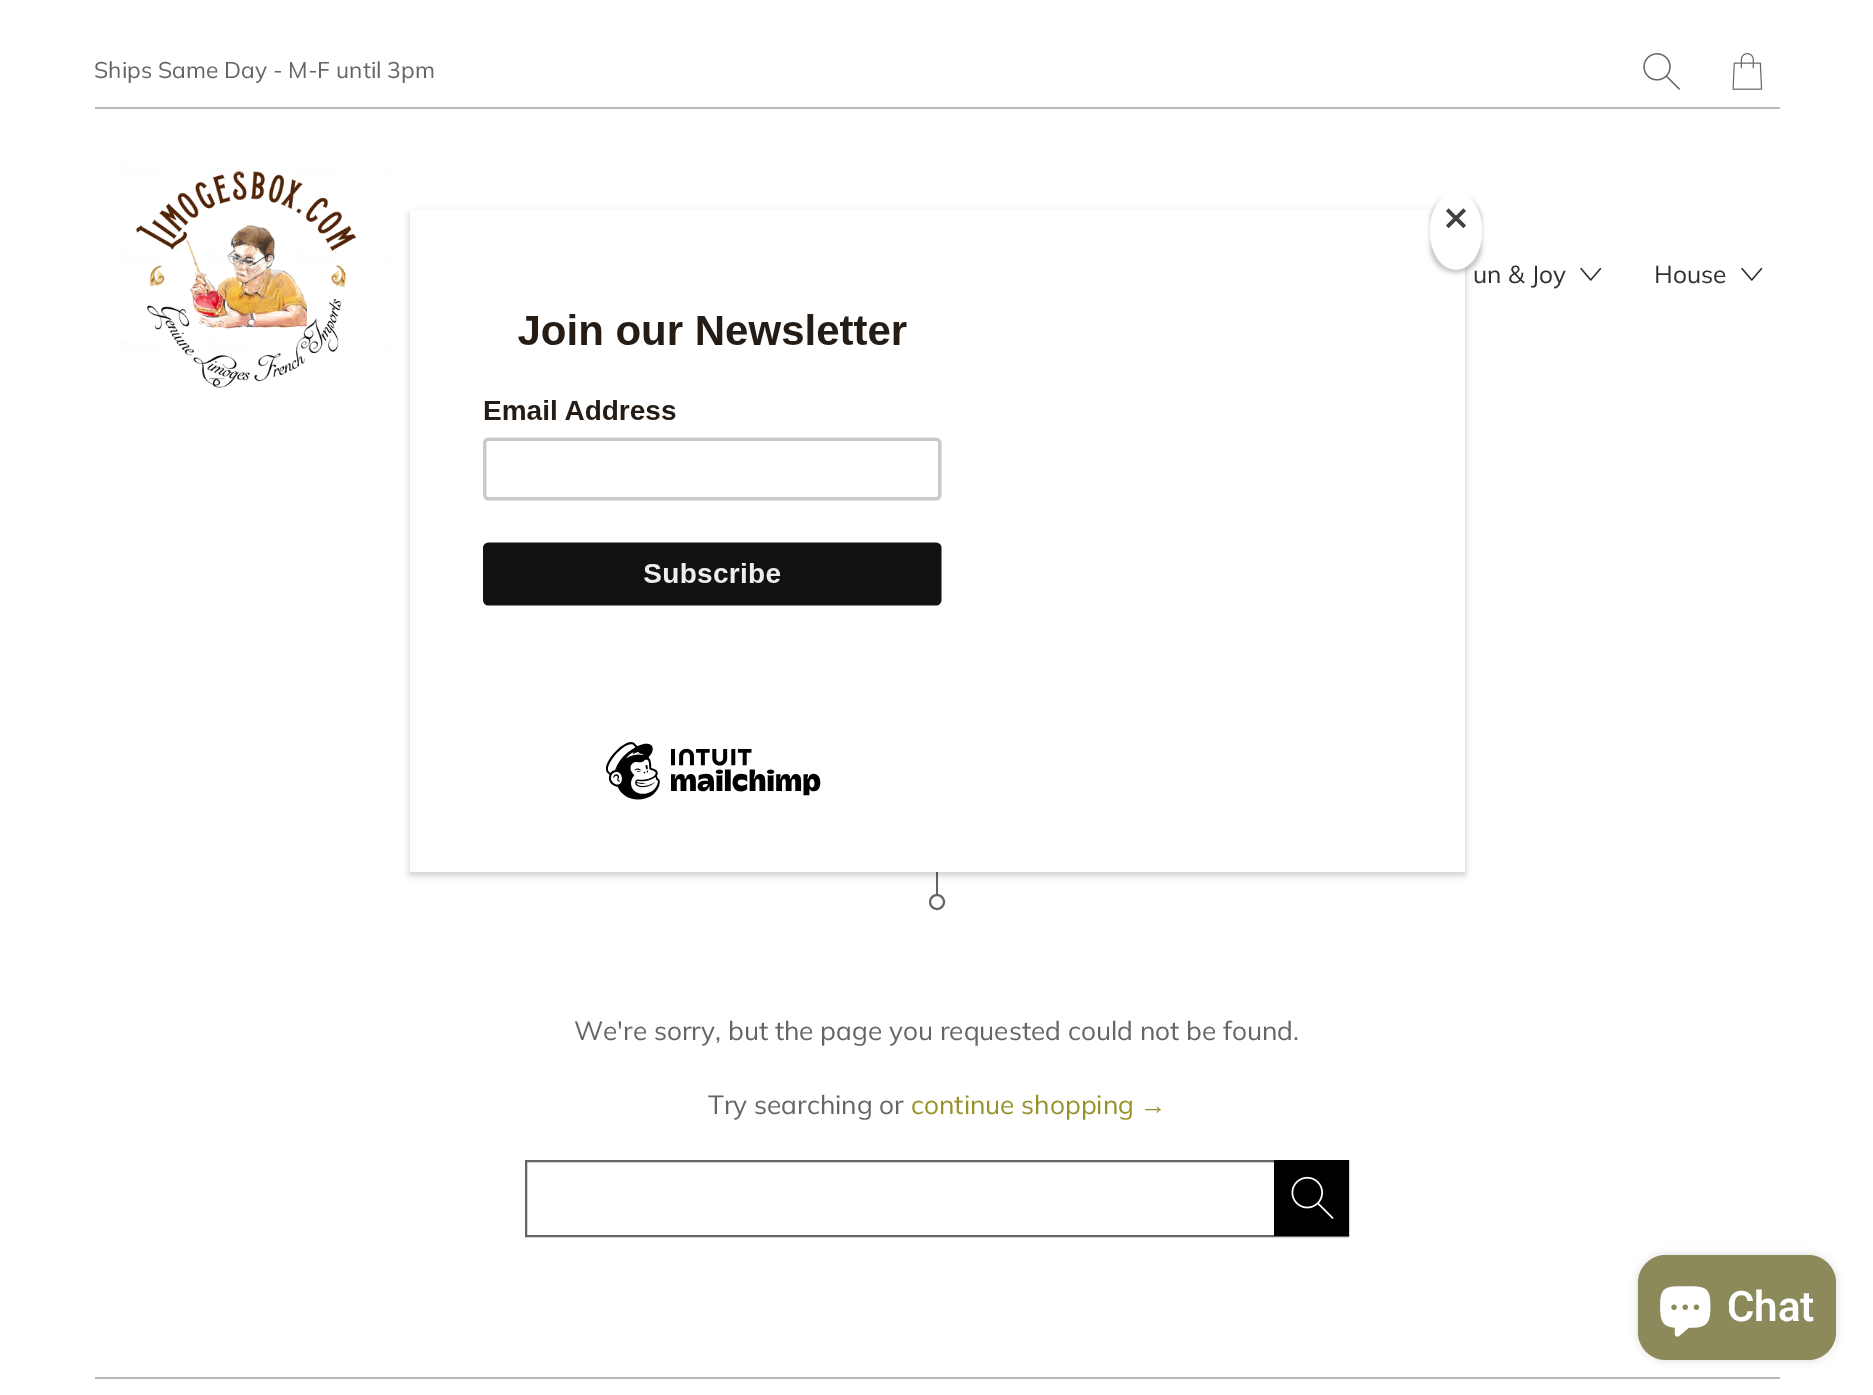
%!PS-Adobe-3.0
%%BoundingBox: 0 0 1873 1395
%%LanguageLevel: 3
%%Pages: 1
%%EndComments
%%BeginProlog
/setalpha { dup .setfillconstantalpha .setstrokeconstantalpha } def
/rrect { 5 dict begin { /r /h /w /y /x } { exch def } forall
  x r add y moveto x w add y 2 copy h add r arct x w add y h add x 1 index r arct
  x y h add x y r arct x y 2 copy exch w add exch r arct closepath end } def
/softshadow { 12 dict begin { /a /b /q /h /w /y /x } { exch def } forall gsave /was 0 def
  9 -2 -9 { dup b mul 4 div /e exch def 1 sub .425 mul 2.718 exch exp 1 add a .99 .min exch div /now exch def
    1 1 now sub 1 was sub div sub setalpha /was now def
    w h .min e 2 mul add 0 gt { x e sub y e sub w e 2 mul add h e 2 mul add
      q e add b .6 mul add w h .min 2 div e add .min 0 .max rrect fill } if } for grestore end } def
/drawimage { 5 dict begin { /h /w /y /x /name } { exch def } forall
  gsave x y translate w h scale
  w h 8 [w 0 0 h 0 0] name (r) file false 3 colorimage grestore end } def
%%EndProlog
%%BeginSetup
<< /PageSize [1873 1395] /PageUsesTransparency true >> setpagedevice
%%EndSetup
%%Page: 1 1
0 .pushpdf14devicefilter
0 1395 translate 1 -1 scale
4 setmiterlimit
1 setgray
0 0 1873 1395 rectfill
0.722 setgray
95 107 1685 2 rectfill
(images/1.raw) 1643 53 37 37 drawimage
(images/2.raw) 1732 53 31 37 drawimage
(images/3.raw) 118 165 273 223 drawimage
(images/4.raw) 1580 267 22 14 drawimage
(images/4.raw) 1741 267 22 14 drawimage
0.396 setgray
936 872 2 22 rectfill
gsave
newpath 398 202 moveto 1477 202 lineto 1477 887 lineto 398 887 lineto closepath 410 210 moveto 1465 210 lineto 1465 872 lineto 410 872 lineto closepath eoclip newpath
0 setgray
410 214 1055 661 0 3.5 0.2 softshadow
grestore
(images/5.raw) 410 215 1055 657 drawimage
0 setgray
1430 196 52 77 26 2 0.2 softshadow
0.396 setgray
2 setlinewidth
newpath 937 902 7 0 360 arc closepath stroke
526 1161 822 75 rectstroke
0 setgray
1274 1160 75 76 rectfill
(images/6.raw) 1291 1176 43 43 drawimage
0.722 setgray
95 1377 1685 2 rectfill
0 setgray
1638 1255 198 105 28 4.5 0.15 softshadow
0.549 0.541 0.357 setrgbcolor
1638 1255 198 105 28 rrect fill
(images/7.raw) 1660 1286 51 51 drawimage
/Muli-Regular [22.75 0 0 -22.75 0 0] selectfont
0.396 setgray
94 78 moveto (Ships Same Day - M-F until 3pm) show
/Muli-Regular [24.5 0 0 -24.5 0 0] selectfont
0.184 setgray
1473 283 moveto (un & Joy) show
1654 283 moveto (House) show
1 setgray
newpath 1456 192.5 moveto 1470.5 192.5 1482 209.5 1482 231 curveto 1482 252.5 1470.5 269.5 1456 269.5 curveto 1441.5 269.5 1430 252.5 1430 231 curveto 1430 209.5 1441.5 192.5 1456 192.5 curveto closepath fill
0.255 setgray
newpath 1463.5 208.5 moveto 1466 211 lineto 1448.5 228 lineto 1446 225.5 lineto closepath fill
newpath 1446 211 moveto 1448.5 208.5 lineto 1466 225.5 lineto 1463.5 228 lineto closepath fill
/Muli-Regular [26.25 0 0 -26.25 0 0] selectfont
0.396 setgray
574 1040 moveto (We're sorry, but the page you requested could not be found.) show
708 1114 moveto (Try searching or) show
0.592 0.573 0.153 setrgbcolor
911 1114 moveto (continue shopping) show
/LiberationSans-Regular [26.25 0 0 -26.25 0 0] selectfont
1140 1114 moveto (→) show
/Roboto-SemiBold [42 0 0 -42 0 0] selectfont
1 setgray
1727 1321 moveto (Chat) show
.poppdf14devicefilter showpage
%%EOF
